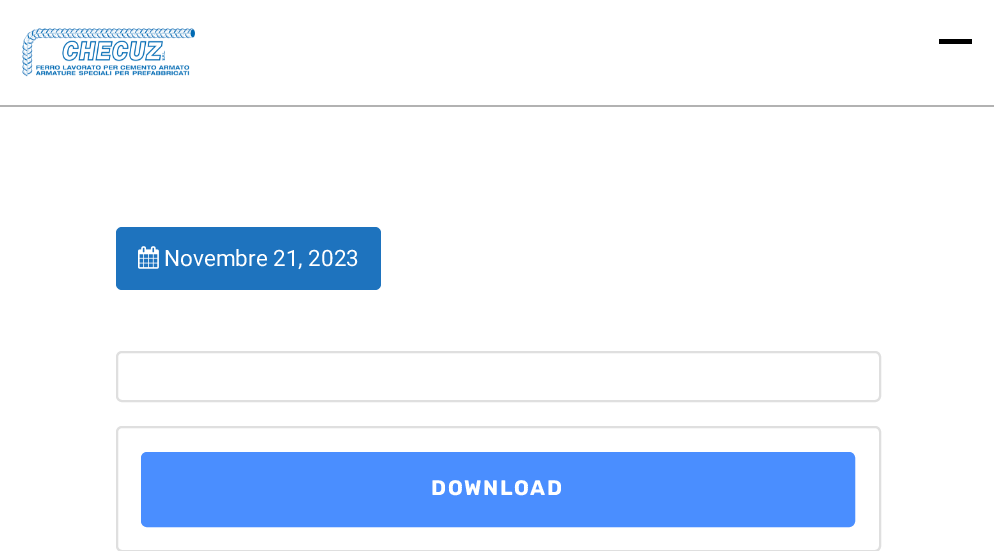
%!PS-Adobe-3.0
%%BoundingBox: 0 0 994 551
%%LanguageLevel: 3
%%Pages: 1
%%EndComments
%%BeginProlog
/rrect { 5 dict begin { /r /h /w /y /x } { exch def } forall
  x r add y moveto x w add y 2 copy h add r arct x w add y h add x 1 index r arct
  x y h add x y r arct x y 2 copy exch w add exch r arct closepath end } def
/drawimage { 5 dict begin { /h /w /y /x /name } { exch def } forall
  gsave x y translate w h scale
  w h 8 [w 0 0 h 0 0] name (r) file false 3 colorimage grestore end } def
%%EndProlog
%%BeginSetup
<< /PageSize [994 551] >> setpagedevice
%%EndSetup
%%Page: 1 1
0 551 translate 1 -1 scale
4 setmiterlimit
1 setgray
0 0 994 551 rectfill
0.698 setgray
0 105 994 2 rectfill
(images/1.raw) 22 28 173 49 drawimage
0 setgray
939 39 33 5 rectfill
0.118 0.451 0.745 setrgbcolor
116 227 265 63 6 rrect fill
(images/2.raw) 138 246 21 23 drawimage
0.875 setgray
2 setlinewidth
117 352 763 49 5 rrect stroke
117 427 763 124 5 rrect stroke
0.29 0.557 1 setrgbcolor
142 453 712 73 5 rrect gsave fill grestore
stroke
/Roboto-Regular [22.5 0 0 -22.5 0 0] selectfont
1 setgray
164 266 moveto (Novembre 21, 2023) show
/Rubik-Bold [21 0 0 -21 0 0] selectfont
431 495 moveto 1.5 0 (DOWNLOAD) ashow
showpage
%%EOF
